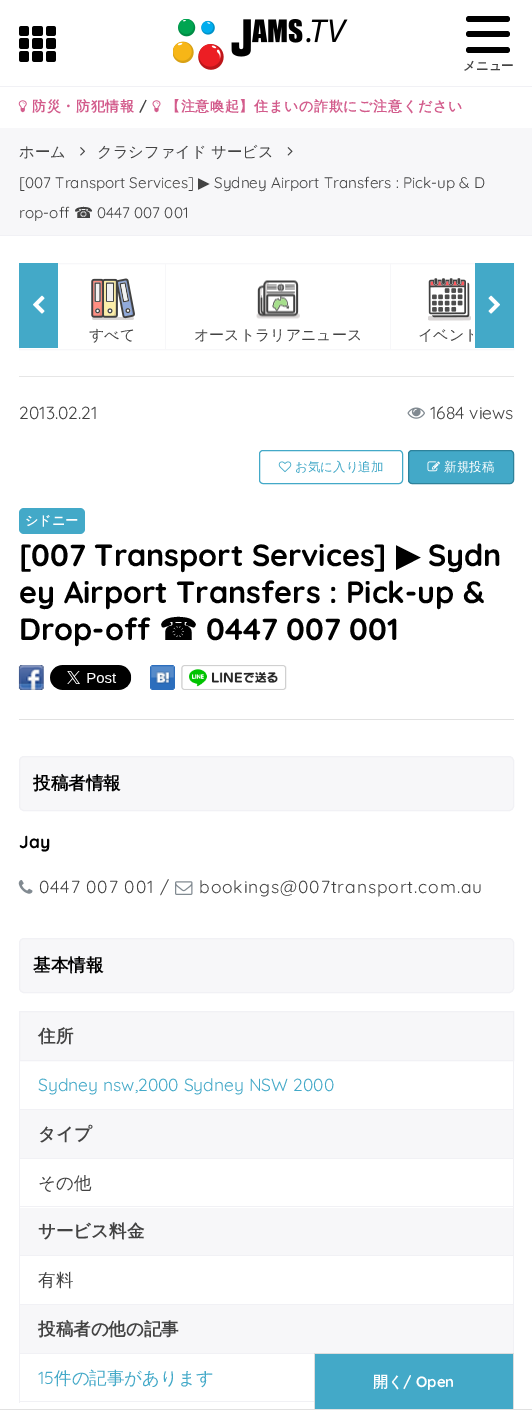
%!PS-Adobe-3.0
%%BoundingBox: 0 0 532 1410
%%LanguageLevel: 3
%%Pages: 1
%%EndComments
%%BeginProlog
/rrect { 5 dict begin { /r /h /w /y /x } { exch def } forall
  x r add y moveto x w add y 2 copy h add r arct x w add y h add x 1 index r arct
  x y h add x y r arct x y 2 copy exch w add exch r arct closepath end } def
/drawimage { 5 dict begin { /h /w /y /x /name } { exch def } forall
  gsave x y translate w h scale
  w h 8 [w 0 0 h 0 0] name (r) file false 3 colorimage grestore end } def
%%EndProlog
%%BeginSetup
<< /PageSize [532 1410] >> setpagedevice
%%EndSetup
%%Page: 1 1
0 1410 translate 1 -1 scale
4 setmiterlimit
1 setgray
0 0 532 1410 rectfill
0.945 0.945 0.961 setrgbcolor
0 86 532 1 rectfill
(images/1.raw) 19 26 37 36 drawimage
(images/2.raw) 173 19 175 51 drawimage
0 setgray
466 16 44 6 3 rrect fill
466 31 44 6 3 rrect fill
466 47 44 6 3 rrect fill
(images/3.raw) 18 100 9 13 drawimage
(images/4.raw) 152 100 9 13 drawimage
0.969 0.969 0.976 setrgbcolor
0 128 532 107 rectfill
0.945 0.945 0.961 setrgbcolor
0 235 532 1 rectfill
(images/5.raw) 80 147 5 9 drawimage
(images/6.raw) 287 147 6 9 drawimage
0.969 0.969 0.976 setrgbcolor
19.5 263.5 494 86 rectstroke
0.263 0.663 0.784 setrgbcolor
19 263 39 85 rectfill
(images/7.raw) 33 295 12 19 drawimage
0.969 0.969 0.976 setrgbcolor
165 264 1 85 rectfill
(images/8.raw) 91 278 44 42 drawimage
390 264 1 85 rectfill
(images/9.raw) 256 280 44 39 drawimage
(images/10.raw) 428 278 43 43 drawimage
0.263 0.663 0.784 setrgbcolor
475 263 39 85 rectfill
(images/11.raw) 488 295 12 19 drawimage
0.902 setgray
19 376 495 1 rectfill
0.882 setgray
19 719 495 1 rectfill
(images/12.raw) 407 407 18 12 drawimage
0.263 0.663 0.784 setrgbcolor
259.5 450.5 143 33 3.5 rrect stroke
(images/13.raw) 278 461 14 12 drawimage
408.5 450.5 105 33 3.5 rrect gsave fill grestore
0.176 0.51 0.608 setrgbcolor
stroke
(images/14.raw) 427 461 13 11 drawimage
0.263 0.663 0.784 setrgbcolor
19 508 66 26 5 rrect fill
(images/15.raw) 18 665 26 25 drawimage
(images/16.raw) 50 665 82 25 drawimage
(images/17.raw) 150 665 25 25 drawimage
(images/18.raw) 181 665 106 25 drawimage
0.969 0.969 0.976 setrgbcolor
19.5 756.5 494 54 4.5 rrect gsave fill grestore
0.945 0.945 0.961 setrgbcolor
stroke
(images/19.raw) 18 880 15 14 drawimage
(images/20.raw) 175 881 18 14 drawimage
0.969 0.969 0.976 setrgbcolor
19.5 938.5 494 54 4.5 rrect gsave fill grestore
0.945 0.945 0.961 setrgbcolor
stroke
0.969 0.969 0.976 setrgbcolor
newpath 19.5 1011.5 moveto 513.5 1011.5 lineto 513.5 1060.5 lineto 19.5 1060.5 lineto closepath gsave fill grestore
0.945 0.945 0.961 setrgbcolor
stroke
513 1061 1 293 rectfill
19 1109 495 1 rectfill
19 1061 1 49 rectfill
0.969 0.969 0.976 setrgbcolor
20 1110 493 48 rectfill
0.945 0.945 0.961 setrgbcolor
19 1158 495 1 rectfill
19 1110 1 49 rectfill
19 1206 495 1 rectfill
19 1159 1 49 rectfill
0.969 0.969 0.976 setrgbcolor
20 1208 493 47 rectfill
0.945 0.945 0.961 setrgbcolor
19 1255 495 1 rectfill
19 1208 1 48 rectfill
19 1304 495 1 rectfill
19 1256 1 49 rectfill
0.969 0.969 0.976 setrgbcolor
20 1305 493 48 rectfill
0.945 0.945 0.961 setrgbcolor
19 1353 295 1 rectfill
19 1305 1 49 rectfill
19 1401 295 1 rectfill
19 1354 1 49 rectfill
0.882 setgray
0 1409 532 1 rectfill
0.263 0.663 0.784 setrgbcolor
315 1354 198 55 rectfill
0.867 setgray
314 1353 200 1 rectfill
513 1353 1 56 rectfill
314 1353 1 56 rectfill
/WenQuanYiZenHei-Bold [12.5 0 0 -12.5 0 0] selectfont
0.263 setgray
463 70 moveto (メニュー) show
/WenQuanYiZenHei-Bold [14 0 0 -14 0 0] selectfont
0.827 0.361 0.549 setrgbcolor
32 111 moveto 0.7 0 (防災・防犯情報) ashow
/Quicksand-Bold [14 0 0 -14 0 0] selectfont
0.263 setgray
139 111 moveto 0.7 0 (/) ashow
/WenQuanYiZenHei-Bold [14 0 0 -14 0 0] selectfont
0.827 0.361 0.549 setrgbcolor
166 111 moveto 0.7 0 (【注意喚起】住まいの詐欺にご注意ください) ashow
/WenQuanYiZenHei-Medium [15.3 0 0 -15.3 0 0] selectfont
0.263 setgray
19 157 moveto (ホーム) show
97 157 moveto (クラシファイド サービス) show
/Quicksand-Regular [15.3 0 0 -15.3 0 0] selectfont
19 188 moveto ([007 Transport Services]) show
/DejaVuSans-Regular [15.3 0 0 -15.3 0 0] selectfont
198 188 moveto (▶) show
/Quicksand-Regular [15.3 0 0 -15.3 0 0] selectfont
214 188 moveto (Sydney Airport Transfers : Pick-up & D) show
19 218 moveto (rop-off) show
/DejaVuSans-Regular [15.3 0 0 -15.3 0 0] selectfont
74 218 moveto (☎) show
/Quicksand-Regular [15.3 0 0 -15.3 0 0] selectfont
97 218 moveto (0447 007 001) show
/WenQuanYiZenHei-Medium [15 0 0 -15 0 0] selectfont
89 340 moveto (すべて) show
194 340 moveto (オーストラリアニュース) show
gsave
60 264 413 85 rectclip
418 340 moveto (イベント) show
grestore
/Quicksand-Regular [17.5 0 0 -17.5 0 0] selectfont
19 419 moveto (2013.02.21) show
430 419 moveto (1684 views) show
/WenQuanYiZenHei-Medium [12.5 0 0 -12.5 0 0] selectfont
0.263 0.663 0.784 setrgbcolor
295 471 moveto (お気に入り追加) show
1 setgray
444 471 moveto (新規投稿) show
/WenQuanYiZenHei-Bold [13 0 0 -13 0 0] selectfont
25 525 moveto (シドニー) show
/Quicksand-Bold [30.6 0 0 -30.6 0 0] selectfont
0 setgray
19 566 moveto ([007 Transport Services]) show
/DejaVuSans-Bold [30.6 0 0 -30.6 0 0] selectfont
396 566 moveto (▶) show
/Quicksand-Bold [30.6 0 0 -30.6 0 0] selectfont
428 566 moveto (Sydn) show
19 603 moveto (ey Airport Transfers : Pick-up &) show
19 640 moveto (Drop-off) show
/DejaVuSans-Bold [30.6 0 0 -30.6 0 0] selectfont
159 640 moveto (☎) show
/Quicksand-Bold [30.6 0 0 -30.6 0 0] selectfont
206 640 moveto (0447 007 001) show
/WenQuanYiZenHei-Bold [17.5 0 0 -17.5 0 0] selectfont
33 789 moveto (投稿者情報) show
/Quicksand-Bold [17.5 0 0 -17.5 0 0] selectfont
19 848 moveto (Jay) show
/Quicksand-Regular [17.5 0 0 -17.5 0 0] selectfont
0.263 setgray
39 893 moveto 0.9 0 (0447 007 001 /) ashow
199 893 moveto 0.9 0 (bookings@007transport.com.au) ashow
/WenQuanYiZenHei-Bold [17.5 0 0 -17.5 0 0] selectfont
0 setgray
33 971 moveto (基本情報) show
0.263 setgray
38 1042 moveto (住所) show
/Quicksand-Regular [17.5 0 0 -17.5 0 0] selectfont
0.263 0.663 0.784 setrgbcolor
38 1091 moveto (Sydney nsw,2000 Sydney NSW 2000) show
/WenQuanYiZenHei-Bold [17.5 0 0 -17.5 0 0] selectfont
0.263 setgray
38 1140 moveto (タイプ) show
/WenQuanYiZenHei-Medium [17.5 0 0 -17.5 0 0] selectfont
38 1189 moveto (その他) show
/WenQuanYiZenHei-Bold [17.5 0 0 -17.5 0 0] selectfont
38 1237 moveto (サービス料金) show
/WenQuanYiZenHei-Medium [17.5 0 0 -17.5 0 0] selectfont
38 1286 moveto (有料) show
/WenQuanYiZenHei-Bold [17.5 0 0 -17.5 0 0] selectfont
38 1335 moveto (投稿者の他の記事) show
/Quicksand-Regular [17.5 0 0 -17.5 0 0] selectfont
0.263 0.663 0.784 setrgbcolor
38 1384 moveto (15) show
/WenQuanYiZenHei-Medium [17.5 0 0 -17.5 0 0] selectfont
54 1384 moveto (件の記事があります) show
/WenQuanYiZenHei-Bold [15 0 0 -15 0 0] selectfont
1 setgray
373 1387 moveto (開く) show
/Quicksand-Bold [15 0 0 -15 0 0] selectfont
403 1387 moveto (/ Open) show
showpage
%%EOF
